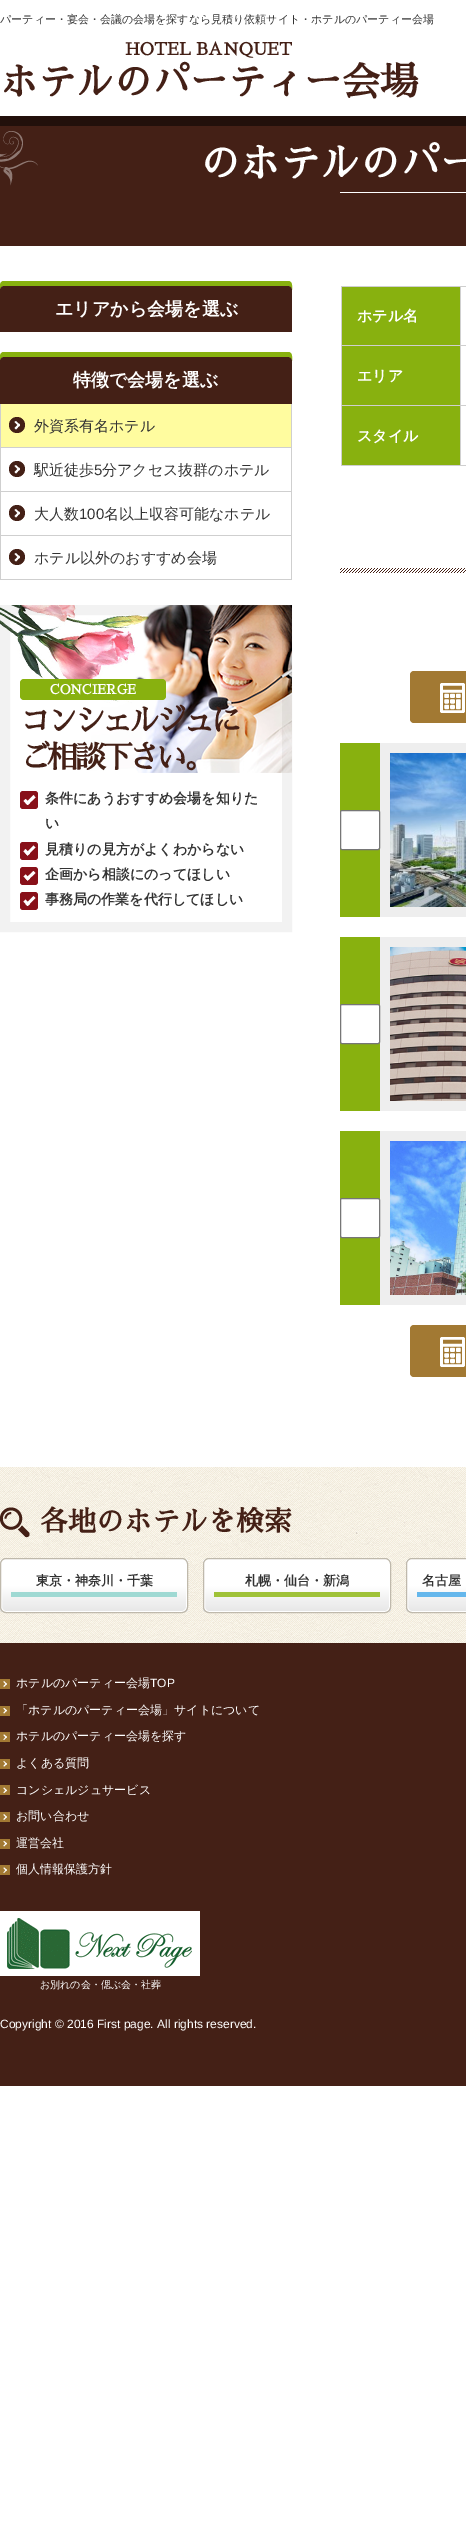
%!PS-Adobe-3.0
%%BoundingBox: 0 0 466 2522
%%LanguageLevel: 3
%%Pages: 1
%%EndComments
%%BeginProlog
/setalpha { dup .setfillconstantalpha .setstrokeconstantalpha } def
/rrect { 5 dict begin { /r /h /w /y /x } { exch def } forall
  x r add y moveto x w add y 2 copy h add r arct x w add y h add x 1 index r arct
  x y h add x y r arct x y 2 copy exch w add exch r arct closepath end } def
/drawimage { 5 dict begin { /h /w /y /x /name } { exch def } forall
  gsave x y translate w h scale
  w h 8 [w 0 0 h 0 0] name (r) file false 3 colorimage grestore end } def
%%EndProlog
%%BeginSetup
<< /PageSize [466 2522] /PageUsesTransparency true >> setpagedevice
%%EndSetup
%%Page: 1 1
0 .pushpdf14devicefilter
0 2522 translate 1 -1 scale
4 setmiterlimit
1 setgray
0 0 466 2522 rectfill
0.267 0.125 0.086 setrgbcolor
0 126 466 120 rectfill
(images/1.raw) 0 131 38 55 drawimage
0.133 0.063 0.043 setrgbcolor
0 116 466 10 rectfill
1 setgray
340 192 126 1 rectfill
0.533 0.694 0.059 setrgbcolor
newpath 4 281 moveto -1 281 0 287 0 290 curveto 0 288 2 286 4 286 curveto 288 286 lineto 290 286 292 288 292 290 curveto 292 287 293 281 288 281 curveto closepath fill
0.267 0.125 0.086 setrgbcolor
newpath 4 286 moveto 288 286 lineto 290 286 292 288 292 290 curveto 292 332 lineto 0 332 lineto 0 290 lineto 0 288 2 286 4 286 curveto closepath fill
0.533 0.694 0.059 setrgbcolor
newpath 4 352 moveto -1 352 0 358 0 361 curveto 0 359 2 357 4 357 curveto 288 357 lineto 290 357 292 359 292 361 curveto 292 358 293 352 288 352 curveto closepath fill
0.267 0.125 0.086 setrgbcolor
newpath 4 357 moveto 288 357 lineto 290 357 292 359 292 361 curveto 292 404 lineto 0 404 lineto 0 361 lineto 0 359 2 357 4 357 curveto closepath fill
0.812 setgray
291 404 1 176 rectfill
0 404 1 176 rectfill
1 0.988 0.624 setrgbcolor
1 404 290 43 rectfill
0.812 setgray
1 447 290 1 rectfill
0.267 0.125 0.086 setrgbcolor
newpath 17 425 8 0 360 arc closepath fill
1 setgray
newpath 16 421 moveto 20 425 lineto 19 426.5 lineto 14.5 422 lineto closepath fill
newpath 19 423.5 moveto 20 425 lineto 16 429.5 lineto 14.5 428 lineto closepath fill
0.812 setgray
1 491 290 1 rectfill
0.267 0.125 0.086 setrgbcolor
newpath 17 469 8 0 360 arc closepath fill
1 setgray
newpath 16 465 moveto 20 469 lineto 19 470.5 lineto 14.5 466 lineto closepath fill
newpath 19 467.5 moveto 20 469 lineto 16 473.5 lineto 14.5 472 lineto closepath fill
0.812 setgray
1 535 290 1 rectfill
0.267 0.125 0.086 setrgbcolor
newpath 17 513 8 0 360 arc closepath fill
1 setgray
newpath 16 509 moveto 20 513 lineto 19 514.5 lineto 14.5 510 lineto closepath fill
newpath 19 511.5 moveto 20 513 lineto 16 517.5 lineto 14.5 516 lineto closepath fill
0.812 setgray
1 579 290 1 rectfill
0.267 0.125 0.086 setrgbcolor
newpath 17 557 8 0 360 arc closepath fill
1 setgray
newpath 16 553 moveto 20 557 lineto 19 558.5 lineto 14.5 554 lineto closepath fill
newpath 19 555.5 moveto 20 557 lineto 16 561.5 lineto 14.5 560 lineto closepath fill
(images/2.raw) 0 605 292 168 drawimage
0.05 setalpha
0 setgray
10 setlinewidth
5 610 282 317 rectstroke
1 setalpha
0.533 0.694 0.059 setrgbcolor
20 679 146 21 4 rrect fill
0.533 0.063 0.098 setrgbcolor
20 791 18 18 3 rrect fill
1 setgray
newpath 25.5 803 moveto 33.5 795 lineto 35.5 797.5 lineto 27.5 805 lineto closepath fill
newpath 23.5 801 moveto 25.5 799 lineto 30 803 lineto 27.5 805 lineto closepath fill
0.533 0.063 0.098 setrgbcolor
20 842 18 18 3 rrect fill
1 setgray
newpath 25.5 853.5 moveto 33.5 845.5 lineto 35.5 847.5 lineto 27.5 855.5 lineto closepath fill
newpath 23.5 851.5 moveto 25.5 849 lineto 30 853.5 lineto 27.5 855.5 lineto closepath fill
0.533 0.063 0.098 setrgbcolor
20 867 18 18 3 rrect fill
1 setgray
newpath 25.5 878.5 moveto 33.5 871 lineto 35.5 873 lineto 27.5 880.5 lineto closepath fill
newpath 23.5 876.5 moveto 25.5 874.5 lineto 30 878.5 lineto 27.5 880.5 lineto closepath fill
0.533 0.063 0.098 setrgbcolor
20 892 18 18 3 rrect fill
1 setgray
newpath 25.5 904 moveto 33.5 896 lineto 35.5 898 lineto 27.5 906 lineto closepath fill
newpath 23.5 901.5 moveto 25.5 899.5 lineto 30 904 lineto 27.5 906 lineto closepath fill
0.533 0.694 0.059 setrgbcolor
342 287 118 58 rectfill
0.812 setgray
460 286 6 1 rectfill
460 345 6 1 rectfill
460 405 6 1 rectfill
460 465 6 1 rectfill
460 405 1 61 rectfill
341 405 120 1 rectfill
460 345 1 61 rectfill
341 345 120 1 rectfill
460 286 1 60 rectfill
341 286 120 1 rectfill
341 465 120 1 rectfill
341 405 1 61 rectfill
341 345 1 61 rectfill
341 286 1 60 rectfill
0.533 0.694 0.059 setrgbcolor
342 346 118 59 rectfill
342 406 118 59 rectfill
(images/3.raw) 340 568 126 5 drawimage
0.635 0.475 0.2 setrgbcolor
410 671 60 52 4 rrect fill
(images/4.raw) 440 683 25 30 drawimage
0.933 setgray
380 743 86 174 rectfill
0.533 0.694 0.059 setrgbcolor
340 743 40 174 rectfill
1 setgray
340.5 810.5 39 39 1.5 rrect gsave fill grestore
0.463 setgray
1 setlinewidth
stroke
(images/5.raw) 390 753 76 154 drawimage
0.933 setgray
380 937 86 174 rectfill
0.533 0.694 0.059 setrgbcolor
340 937 40 174 rectfill
1 setgray
340.5 1004.5 39 39 1.5 rrect gsave fill grestore
0.463 setgray
stroke
(images/6.raw) 390 947 76 154 drawimage
0.933 setgray
380 1131 86 174 rectfill
0.533 0.694 0.059 setrgbcolor
340 1131 40 174 rectfill
1 setgray
340.5 1198.5 39 39 1.5 rrect gsave fill grestore
0.463 setgray
stroke
(images/7.raw) 390 1141 76 154 drawimage
0.635 0.475 0.2 setrgbcolor
410 1325 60 52 4 rrect fill
(images/4.raw) 440 1337 25 30 drawimage
0.267 0.125 0.086 setrgbcolor
0 1643 466 443 rectfill
(images/8.raw) 0 1467 466 176 drawimage
(images/9.raw) 0 1507 30 31 drawimage
gsave
0 1558 188 55 6 rrect clip newpath
gsave newpath 0 1559 moveto 188 1559 lineto 188 1612 lineto 0 1612 lineto closepath clip newpath
<< /ShadingType 2 /ColorSpace /DeviceRGB /Coords [94 1559 94 1612] /Extend [true true] /Function << /FunctionType 3 /Domain [0 1] /Functions [<< /FunctionType 2 /Domain [0 1] /C0 [1 1 1] /C1 [1 1 1] /N 1 >> << /FunctionType 2 /Domain [0 1] /C0 [1 1 1] /C1 [0.902 0.902 0.902] /N 1 >>] /Bounds [0.5] /Encode [0 1 0 1] >> >> shfill grestore
grestore
1 setgray
1.5 1559.5 185 52 4.5 rrect stroke
0.749 0.725 0.675 setrgbcolor
0.5 1558.5 187 54 5.5 rrect stroke
0.624 0.851 0.827 setrgbcolor
11 1592 166 5 rectfill
gsave
203 1558 188 55 6 rrect clip newpath
gsave newpath 203 1559 moveto 391 1559 lineto 391 1612 lineto 203 1612 lineto closepath clip newpath
<< /ShadingType 2 /ColorSpace /DeviceRGB /Coords [297 1559 297 1612] /Extend [true true] /Function << /FunctionType 3 /Domain [0 1] /Functions [<< /FunctionType 2 /Domain [0 1] /C0 [1 1 1] /C1 [1 1 1] /N 1 >> << /FunctionType 2 /Domain [0 1] /C0 [1 1 1] /C1 [0.902 0.902 0.902] /N 1 >>] /Bounds [0.5] /Encode [0 1 0 1] >> >> shfill grestore
grestore
1 setgray
204.5 1559.5 185 52 4.5 rrect stroke
0.749 0.725 0.675 setrgbcolor
203.5 1558.5 187 54 5.5 rrect stroke
0.624 0.761 0.22 setrgbcolor
214 1592 166 5 rectfill
gsave
406 1558 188 55 6 rrect clip newpath
gsave newpath 406 1559 moveto 466 1559 lineto 466 1612 lineto 406 1612 lineto closepath clip newpath
<< /ShadingType 2 /ColorSpace /DeviceRGB /Coords [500 1559 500 1612] /Extend [true true] /Function << /FunctionType 3 /Domain [0 1] /Functions [<< /FunctionType 2 /Domain [0 1] /C0 [1 1 1] /C1 [1 1 1] /N 1 >> << /FunctionType 2 /Domain [0 1] /C0 [1 1 1] /C1 [0.902 0.902 0.902] /N 1 >>] /Bounds [0.5] /Encode [0 1 0 1] >> >> shfill grestore
grestore
1 setgray
407.5 1559.5 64 52 4.5 rrect stroke
0.749 0.725 0.675 setrgbcolor
406.5 1558.5 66 54 5.5 rrect stroke
0.396 0.718 0.925 setrgbcolor
417 1592 49 5 rectfill
0.635 0.475 0.2 setrgbcolor
0 1679 10 10 rectfill
1 setgray
newpath 4 1681 moveto 7 1684 lineto 6 1684.5 lineto 3.5 1682 lineto closepath fill
newpath 6 1683.5 moveto 7 1684 lineto 4 1687 lineto 3.5 1686 lineto closepath fill
0.635 0.475 0.2 setrgbcolor
0 1706 10 10 rectfill
1 setgray
newpath 4 1708 moveto 7 1710.5 lineto 6 1711.5 lineto 3.5 1708.5 lineto closepath fill
newpath 6 1710 moveto 7 1710.5 lineto 4 1713.5 lineto 3.5 1712.5 lineto closepath fill
0.635 0.475 0.2 setrgbcolor
0 1732 10 10 rectfill
1 setgray
newpath 4 1734.5 moveto 7 1737 lineto 6 1738 lineto 3.5 1735 lineto closepath fill
newpath 6 1736.5 moveto 7 1737 lineto 4 1740 lineto 3.5 1739.5 lineto closepath fill
0.635 0.475 0.2 setrgbcolor
0 1759 10 10 rectfill
1 setgray
newpath 4 1761 moveto 7 1764 lineto 6 1764.5 lineto 3.5 1761.5 lineto closepath fill
newpath 6 1763 moveto 7 1764 lineto 4 1766.5 lineto 3.5 1766 lineto closepath fill
0.635 0.475 0.2 setrgbcolor
0 1785 10 10 rectfill
1 setgray
newpath 4 1787.5 moveto 7 1790.5 lineto 6 1791 lineto 3.5 1788.5 lineto closepath fill
newpath 6 1789.5 moveto 7 1790.5 lineto 4 1793 lineto 3.5 1792.5 lineto closepath fill
0.635 0.475 0.2 setrgbcolor
0 1812 10 10 rectfill
1 setgray
newpath 4 1814 moveto 7 1817 lineto 6 1817.5 lineto 3.5 1815 lineto closepath fill
newpath 6 1816.5 moveto 7 1817 lineto 4 1820 lineto 3.5 1819 lineto closepath fill
0.635 0.475 0.2 setrgbcolor
0 1839 10 10 rectfill
1 setgray
newpath 4 1841 moveto 7 1843.5 lineto 6 1844.5 lineto 3.5 1841.5 lineto closepath fill
newpath 6 1843 moveto 7 1843.5 lineto 4 1846.5 lineto 3.5 1845.5 lineto closepath fill
0.635 0.475 0.2 setrgbcolor
0 1865 10 10 rectfill
1 setgray
newpath 4 1867.5 moveto 7 1870 lineto 6 1871 lineto 3.5 1868 lineto closepath fill
newpath 6 1869.5 moveto 7 1870 lineto 4 1873 lineto 3.5 1872.5 lineto closepath fill
(images/10.raw) 0 1911 200 65 drawimage
/WenQuanYiZenHei-Medium [11 0 0 -11 0 0] selectfont
0.2 setgray
0 23 moveto (パーティー・宴会・会議の会場を探すなら見積り依頼サイト・ホテルのパーティー会場) show
/SawarabiMincho-Bold [17 0 0 -17 0 0] selectfont
0.267 0.125 0.086 setrgbcolor
125 55 moveto (HOTEL BANQUET) show
/SawarabiMincho-Bold [38 0 0 -38 0 0] selectfont
0 95 moveto (ホテルのパーティー会場) show
/SawarabiMincho-Bold [40 0 0 -40 0 0] selectfont
1 setgray
200 177 moveto (のホテルのパー) show
/WenQuanYiZenHei-Bold [18 0 0 -18 0 0] selectfont
55 315 moveto (エリアから会場を選ぶ) show
73 386 moveto (特徴で会場を選ぶ) show
/WenQuanYiZenHei-Medium [15 0 0 -15 0 0] selectfont
0.2 setgray
34 431 moveto (外資系有名ホテル) show
34 475 moveto (駅近徒歩) show
/LiberationSans-Regular [15 0 0 -15 0 0] selectfont
94 475 moveto (5) show
/WenQuanYiZenHei-Medium [15 0 0 -15 0 0] selectfont
102 475 moveto (分アクセス抜群のホテル) show
34 519 moveto (大人数) show
/LiberationSans-Regular [15 0 0 -15 0 0] selectfont
79 519 moveto (100) show
/WenQuanYiZenHei-Medium [15 0 0 -15 0 0] selectfont
104 519 moveto (名以上収容可能なホテル) show
34 563 moveto (ホテル以外のおすすめ会場) show
/SawarabiMincho-Bold [13 0 0 -13 0 0] selectfont
1 setgray
50 694 moveto (CONCIERGE) show
/SawarabiMincho-Bold [31 0 0 -31 0 0] selectfont
0.267 0.125 0.086 setrgbcolor
20 731 moveto -3.75 0 (コンシェルジュに) ashow
20 768 moveto -3.75 0 (ご相談下さい。) ashow
/WenQuanYiZenHei-Bold [14 0 0 -14 0 0] selectfont
0.2 setgray
45 803 moveto (条件にあうおすすめ会場を知りた) show
45 828 moveto (い) show
45 854 moveto (見積りの見方がよくわからない) show
45 879 moveto (企画から相談にのってほしい) show
45 904 moveto (事務局の作業を代行してほしい) show
/WenQuanYiZenHei-Bold [15 0 0 -15 0 0] selectfont
1 setgray
357 321 moveto (ホテル名) show
357 381 moveto (エリア) show
357 441 moveto (スタイル) show
/SawarabiMincho-Bold [28 0 0 -28 0 0] selectfont
0.267 0.125 0.086 setrgbcolor
40 1531 moveto (各地のホテルを検索) show
/WenQuanYiZenHei-Bold [13 0 0 -13 0 0] selectfont
0.2 setgray
36 1585 moveto (東京・神奈川・千葉) show
245 1585 moveto (札幌・仙台・新潟) show
422 1585 moveto (名古屋) show
/WenQuanYiZenHei-Medium [12 0 0 -12 0 0] selectfont
1 setgray
16 1687 moveto (ホテルのパーティー会場) show
/LiberationSans-Regular [12 0 0 -12 0 0] selectfont
150 1687 moveto (TOP) show
/WenQuanYiZenHei-Medium [12 0 0 -12 0 0] selectfont
16 1714 moveto (「ホテルのパーティー会場」サイトについて) show
16 1740 moveto (ホテルのパーティー会場を探す) show
16 1767 moveto (よくある質問) show
16 1794 moveto (コンシェルジュサービス) show
16 1820 moveto (お問い合わせ) show
16 1847 moveto (運営会社) show
16 1873 moveto (個人情報保護方針) show
/WenQuanYiZenHei-Medium [10 0 0 -10 0 0] selectfont
40 1988 moveto (お別れの会・偲ぶ会・社葬) show
/LiberationSans-Regular [12 0 0 -12 0 0] selectfont
0 2028 moveto (Copyright © 2016 First page. All rights reserved.) show
.poppdf14devicefilter showpage
%%EOF
